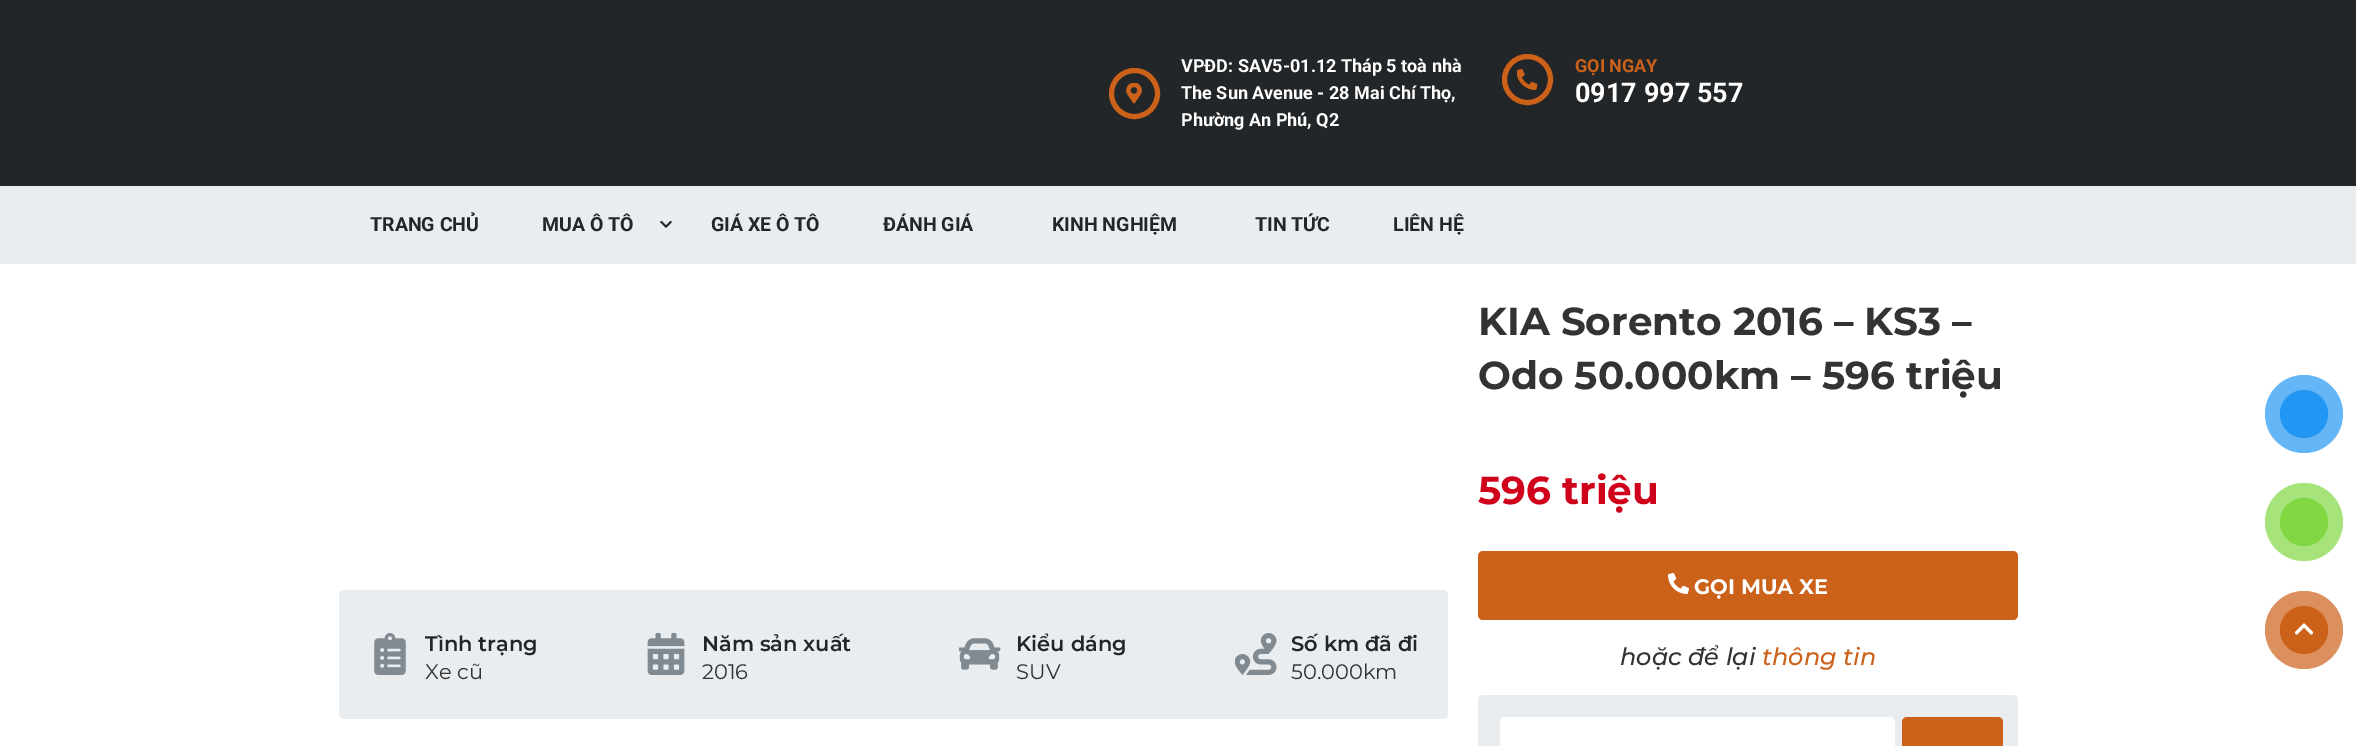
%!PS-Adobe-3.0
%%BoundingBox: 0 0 2356 746
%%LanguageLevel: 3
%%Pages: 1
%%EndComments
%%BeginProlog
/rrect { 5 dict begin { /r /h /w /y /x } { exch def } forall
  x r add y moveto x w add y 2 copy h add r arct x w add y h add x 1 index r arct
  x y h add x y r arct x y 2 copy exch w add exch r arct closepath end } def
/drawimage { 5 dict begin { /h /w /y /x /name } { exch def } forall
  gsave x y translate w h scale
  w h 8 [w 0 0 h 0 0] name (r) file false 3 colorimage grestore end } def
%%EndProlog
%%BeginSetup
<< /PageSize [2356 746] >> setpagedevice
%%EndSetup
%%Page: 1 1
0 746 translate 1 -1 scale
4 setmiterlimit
1 setgray
0 0 2356 746 rectfill
0.137 0.149 0.157 setrgbcolor
0 0 2356 186 rectfill
0.8 0.38 0.098 setrgbcolor
5 setlinewidth
newpath 1134.5 93.5 23 0 360 arc closepath stroke
(images/1.raw) 1126 83 16 21 drawimage
newpath 1527.5 79.5 23 0 360 arc closepath stroke
(images/2.raw) 1517 69 21 21 drawimage
0.918 0.929 0.941 setrgbcolor
0 186 2356 78 rectfill
(images/3.raw) 660 220 12 8 drawimage
339 590 1109 129 5 rrect fill
(images/4.raw) 374 633 32 42 drawimage
(images/5.raw) 647 633 38 42 drawimage
(images/6.raw) 959 638 42 32 drawimage
(images/7.raw) 1235 633 42 42 drawimage
0.8 0.38 0.098 setrgbcolor
1478 551 540 69 5 rrect fill
(images/8.raw) 1668 573 21 21 drawimage
0.918 0.929 0.941 setrgbcolor
1478 695 540 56 5 rrect fill
1 setgray
1500 717 395 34 5 rrect fill
0.8 0.38 0.098 setrgbcolor
1902 717 101 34 5 rrect fill
0.392 0.714 0.969 setrgbcolor
newpath 2304 414 39 0 360 arc closepath fill
0.129 0.588 0.953 setrgbcolor
newpath 2304 414 24 0 360 arc closepath fill
0.655 0.89 0.482 setrgbcolor
newpath 2304 522 39 0 360 arc closepath fill
0.506 0.843 0.259 setrgbcolor
newpath 2304 522 24 0 360 arc closepath fill
0.859 0.565 0.369 setrgbcolor
newpath 2304 630 39 0 360 arc closepath fill
0.8 0.38 0.098 setrgbcolor
newpath 2304 630 24 0 360 arc closepath fill
(images/9.raw) 2295 623 18 12 drawimage
/Roboto-Bold [18 0 0 -18 0 0] selectfont
1 setgray
1181 72 moveto (VPĐD: SAV5-01.12 Tháp 5 toà nhà) show
1181 99 moveto (The Sun Avenue - 28 Mai Chí Thọ,) show
1181 126 moveto (Phường An Phú, Q2) show
0.8 0.38 0.098 setrgbcolor
1575 72 moveto (GỌI NGAY) show
/Roboto-Bold [27 0 0 -27 0 0] selectfont
1 setgray
1575 102 moveto (0917 997 557) show
/Roboto-Bold [19.5 0 0 -19.5 0 0] selectfont
0.137 0.149 0.157 setrgbcolor
370 231 moveto (TRANG CHỦ) show
542 231 moveto (MUA Ô TÔ) show
711 231 moveto (GIÁ XE Ô TÔ) show
883 231 moveto (ĐÁNH GIÁ) show
1052 231 moveto (KINH NGHIỆM) show
1255 231 moveto (TIN TỨC) show
1393 231 moveto (LIÊN HỆ) show
/Montserrat-SemiBold [21 0 0 -21 0 0] selectfont
425 651 moveto (Tình trạng) show
/Montserrat-Regular [21 0 0 -21 0 0] selectfont
0.2 setgray
425 679 moveto (Xe cũ) show
/Montserrat-SemiBold [21 0 0 -21 0 0] selectfont
0.137 0.149 0.157 setrgbcolor
702 651 moveto (Năm sản xuất) show
/Montserrat-Regular [21 0 0 -21 0 0] selectfont
0.2 setgray
702 679 moveto (2016) show
/Montserrat-SemiBold [21 0 0 -21 0 0] selectfont
0.137 0.149 0.157 setrgbcolor
1016 651 moveto (Kiểu dáng) show
/Montserrat-Regular [21 0 0 -21 0 0] selectfont
0.2 setgray
1016 679 moveto (SUV) show
/Montserrat-SemiBold [21 0 0 -21 0 0] selectfont
0.137 0.149 0.157 setrgbcolor
1291 651 moveto (Số km đã đi) show
/Montserrat-Regular [21 0 0 -21 0 0] selectfont
0.2 setgray
1291 679 moveto (50.000km) show
/Montserrat-Bold [39 0 0 -39 0 0] selectfont
1478 335 moveto (KIA Sorento 2016 – KS3 –) show
1478 389 moveto (Odo 50.000km – 596 triệu) show
0.816 0.004 0.106 setrgbcolor
1478 504 moveto (596 triệu) show
/Montserrat-Bold [21 0 0 -21 0 0] selectfont
1 setgray
1694 594 moveto (GỌI MUA XE) show
/Montserrat-MediumItalic [24 0 0 -24 0 0] selectfont
0.2 setgray
1620 665 moveto (hoặc để lại) show
0.8 0.38 0.098 setrgbcolor
1762 665 moveto (thông tin) show
showpage
%%EOF
